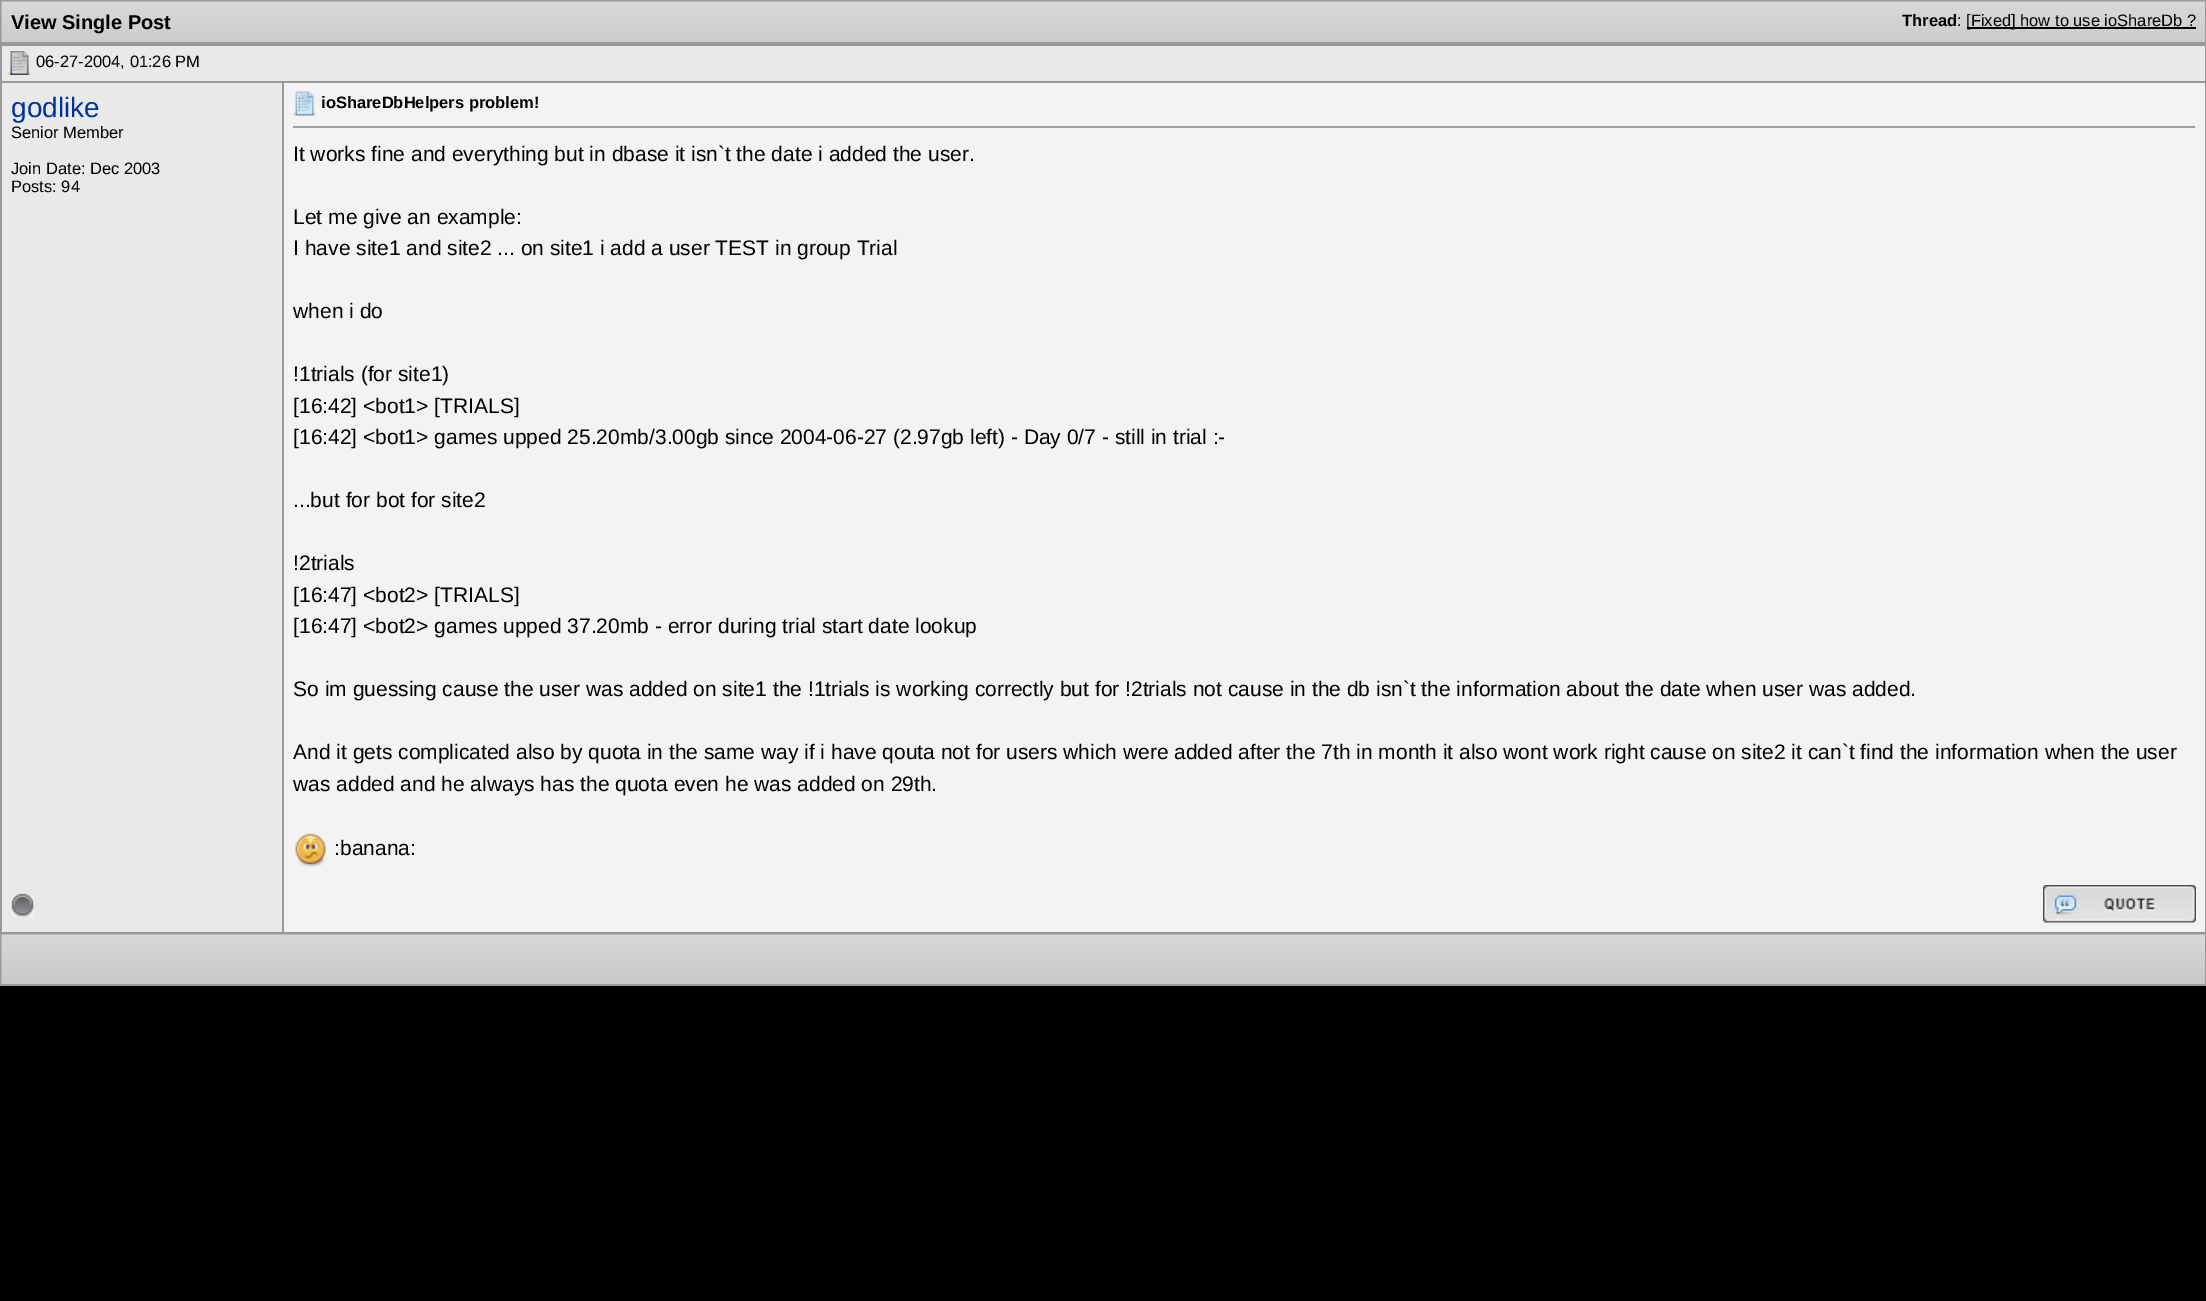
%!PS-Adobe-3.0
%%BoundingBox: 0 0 2206 1301
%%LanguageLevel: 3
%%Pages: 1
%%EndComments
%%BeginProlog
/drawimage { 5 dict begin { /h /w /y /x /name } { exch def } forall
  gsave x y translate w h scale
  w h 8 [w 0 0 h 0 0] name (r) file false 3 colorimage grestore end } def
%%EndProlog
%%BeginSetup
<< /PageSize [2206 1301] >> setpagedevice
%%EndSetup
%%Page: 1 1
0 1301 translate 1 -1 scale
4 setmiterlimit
0 setgray
0 0 2206 1301 rectfill
0.6 setgray
0 0 2206 44 rectfill
(images/1.raw) 1 1 2204 41 drawimage
0 setgray
1967 27 229 2 rectfill
0.914 setgray
2 46 2203 35 rectfill
0.6 setgray
0 44 2206 2 rectfill
0 81 284 2 rectfill
0 44 2 832 rectfill
(images/2.raw) 7 51 25 24 drawimage
2205 44 1 889 rectfill
284 81 1922 2 rectfill
0.914 setgray
2 83 280 849 rectfill
0.6 setgray
282 83 2 850 rectfill
0.953 setgray
284 83 1921 849 rectfill
(images/3.raw) 292 91 25 25 drawimage
0.624 setgray
293 126 1903 2 rectfill
0.933 setgray
2195 126 2 2 rectfill
(images/4.raw) 295 833 31 34 drawimage
0.6 setgray
0 932 2206 54 rectfill
0 876 2 57 rectfill
(images/5.raw) 10 893 25 24 drawimage
(images/6.raw) 2043 885 153 38 drawimage
(images/7.raw) 1 934 2204 50 drawimage
/LiberationSans-Bold [20 0 0 -20 0 0] selectfont
0 setgray
11 29 moveto (View Single Post) show
/LiberationSans-Bold [16.5 0 0 -16.5 0 0] selectfont
1902 26 moveto (Thread) show
/LiberationSans-Regular [16.5 0 0 -16.5 0 0] selectfont
1957 26 moveto (:) show
1966 26 moveto ([Fixed] how to use ioShareDb ?) show
36 67 moveto (06-27-2004, 01:26 PM) show
/LiberationSans-Regular [28 0 0 -28 0 0] selectfont
0 0.2 0.6 setrgbcolor
11 117 moveto (godlike) show
/LiberationSans-Regular [16.5 0 0 -16.5 0 0] selectfont
0 setgray
11 138 moveto (Senior Member) show
11 174 moveto (Join Date: Dec 2003) show
11 192 moveto (Posts: 94) show
/LiberationSans-Bold [16.5 0 0 -16.5 0 0] selectfont
321 108 moveto (ioShareDbHelpers problem!) show
/LiberationSans-Regular [21 0 0 -21 0 0] selectfont
293 161 moveto (It works fine and everything but in dbase it isn`t the date i added the user.) show
293 224 moveto (Let me give an example:) show
293 255 moveto (I have site1 and site2 ... on site1 i add a user TEST in group Trial) show
293 318 moveto (when i do) show
293 381 moveto (!1trials \(for site1\)) show
293 413 moveto ([16:42] <bot1> [TRIALS]) show
293 444 moveto ([16:42] <bot1> games upped 25.20mb/3.00gb since 2004-06-27 \(2.97gb left\) - Day 0/7 - still in trial :-) show
293 507 moveto (...but for bot for site2) show
293 570 moveto (!2trials) show
293 602 moveto ([16:47] <bot2> [TRIALS]) show
293 633 moveto ([16:47] <bot2> games upped 37.20mb - error during trial start date lookup) show
293 696 moveto (So im guessing cause the user was added on site1 the !1trials is working correctly but for !2trials not cause in the db isn`t the information about the date when user was added.) show
293 759 moveto (And it gets complicated also by quota in the same way if i have qouta not for users which were added after the 7th in month it also wont work right cause on site2 it can`t find the information when the user) show
293 791 moveto (was added and he always has the quota even he was added on 29th.) show
334 855 moveto (:banana:) show
showpage
%%EOF
